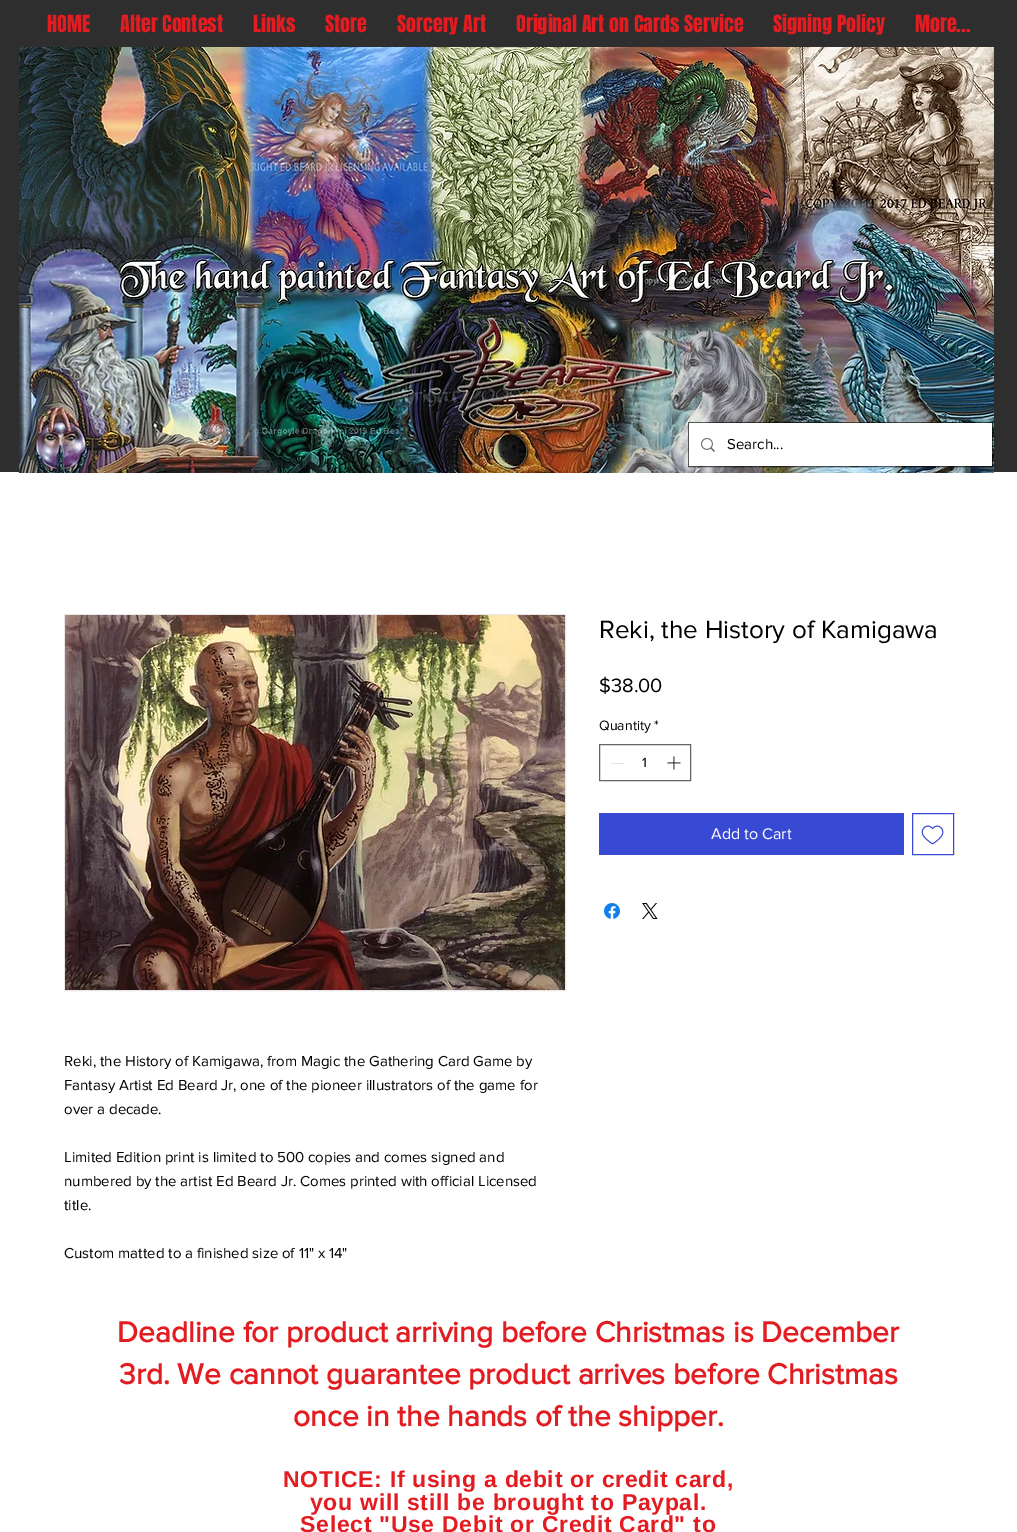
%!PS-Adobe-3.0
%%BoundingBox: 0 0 1017 1532
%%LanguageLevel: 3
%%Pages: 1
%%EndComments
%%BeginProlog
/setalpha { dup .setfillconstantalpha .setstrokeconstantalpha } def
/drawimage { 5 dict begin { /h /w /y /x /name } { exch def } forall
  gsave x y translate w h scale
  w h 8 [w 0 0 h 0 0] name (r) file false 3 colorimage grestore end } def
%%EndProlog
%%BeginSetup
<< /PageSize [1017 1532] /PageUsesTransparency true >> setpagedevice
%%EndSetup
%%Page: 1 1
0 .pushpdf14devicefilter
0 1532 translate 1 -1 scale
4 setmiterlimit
1 setgray
0 0 1017 1532 rectfill
0.184 0.18 0.18 setrgbcolor
0 0 1017 472 rectfill
(images/1.raw) 19 47 975 426 drawimage
0.6 setalpha
0 setgray
688.5 422.5 304 44 rectstroke
1 setalpha
1 setgray
689 423 303 43 rectfill
(images/2.raw) 701 438 14 14 drawimage
0.4 setgray
599.5 744.5 91 36 rectstroke
0.89 setgray
611 763 13 1 rectfill
(images/3.raw) 667 756 14 14 drawimage
0.22 0.29 0.827 setrgbcolor
599 813 305 42 rectfill
912.5 813.5 41 41 rectstroke
(images/4.raw) 921 825 23 20 drawimage
(images/5.raw) 604 903 16 16 drawimage
(images/6.raw) 642 903 16 16 drawimage
0.91 0.902 0.902 setrgbcolor
64.5 614.5 501 376 rectstroke
(images/7.raw) 65 615 500 375 drawimage
/Anton-Regular [20 0 0 -20 0 0] selectfont
0.886 0.11 0.129 setrgbcolor
47 32 moveto (HOME) show
120 32 moveto (Alter Contest) show
253 32 moveto (Links) show
325 32 moveto (Store) show
397 32 moveto (Sorcery Art) show
516 32 moveto (Original Art on Cards Service) show
773 32 moveto (Signing Policy) show
915 32 moveto (More...) show
/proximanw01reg-Regular [15 0 0 -15 0 0] selectfont
0 setgray
727 449 moveto (Search...) show
/proximanw01reg-Regular [26 0 0 -26 0 0] selectfont
599 638 moveto (Reki, the History of Kamigawa) show
/proximanw01reg-Regular [20 0 0 -20 0 0] selectfont
599 692 moveto ($38.00) show
/proximanw01reg-Regular [14 0 0 -14 0 0] selectfont
599 730 moveto (Quantity) show
654 730 moveto (*) show
642 767 moveto (1) show
/proximanw01reg-Regular [16 0 0 -16 0 0] selectfont
1 setgray
711 839 moveto (Add to Cart) show
/proximanw01reg-Regular [15 0 0 -15 0 0] selectfont
0 setgray
64 1066 moveto (Reki, the History of Kamigawa, from Magic the Gathering Card Game by) show
64 1090 moveto (Fantasy Artist Ed Beard Jr, one of the pioneer illustrators of the game for) show
64 1114 moveto (over a decade.) show
64 1162 moveto (Limited Edition print is limited to 500 copies and comes signed and) show
64 1186 moveto (numbered by the artist Ed Beard Jr. Comes printed with official Licensed) show
64 1210 moveto (title.) show
64 1258 moveto (Custom matted to a finished size of 11" x 14") show
/proximanw01reg-Bold [30 0 0 -30 0 0] selectfont
0.886 0.11 0.129 setrgbcolor
117 1342 moveto (Deadline for product arriving before Christmas is December) show
119 1384 moveto (3rd. We cannot guarantee product arrives before Christmas) show
293 1426 moveto (once in the hands of the shipper.) show
/LiberationSans-Bold [23 0 0 -23 0 0] selectfont
283 1487 moveto 0.7 0 (NOTICE: If using a debit or credit card,) ashow
310 1510 moveto 0.7 0 (you will still be brought to Paypal.) ashow
300 1532 moveto 0.7 0 (Select "Use Debit or Credit Card" to) ashow
.poppdf14devicefilter showpage
%%EOF
